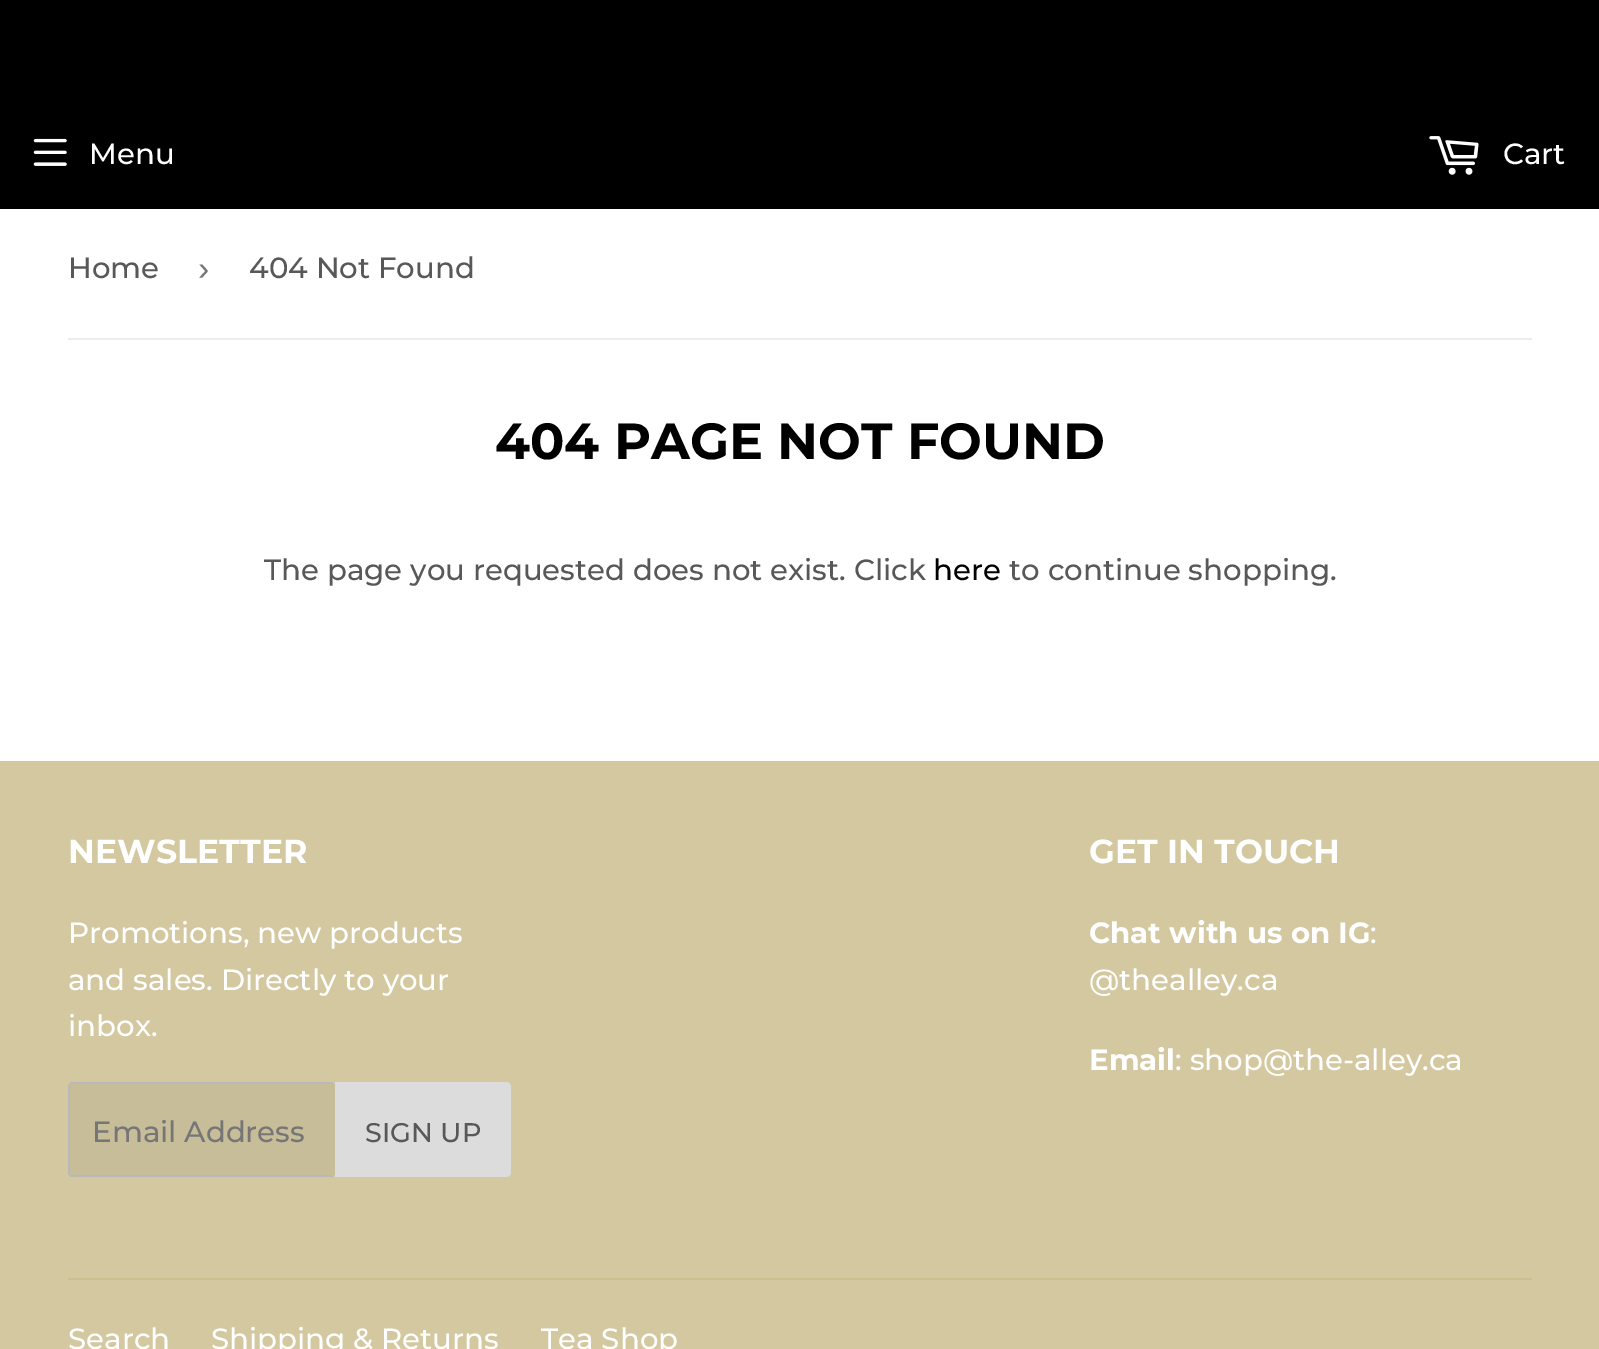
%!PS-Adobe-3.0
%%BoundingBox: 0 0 1599 1349
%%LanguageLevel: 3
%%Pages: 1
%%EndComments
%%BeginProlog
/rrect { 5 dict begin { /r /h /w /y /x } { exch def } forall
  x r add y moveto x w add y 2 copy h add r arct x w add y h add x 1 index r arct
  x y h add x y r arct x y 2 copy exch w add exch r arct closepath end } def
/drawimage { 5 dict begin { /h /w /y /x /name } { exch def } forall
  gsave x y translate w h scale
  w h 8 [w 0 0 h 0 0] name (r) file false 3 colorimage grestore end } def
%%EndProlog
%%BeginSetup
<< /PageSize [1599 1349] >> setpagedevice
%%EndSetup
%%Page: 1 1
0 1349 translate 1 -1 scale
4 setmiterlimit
1 setgray
0 0 1599 1349 rectfill
0 setgray
0 0 1599 209 rectfill
(images/1.raw) 33 138 34 28 drawimage
(images/2.raw) 1429 136 50 39 drawimage
0.925 setgray
68 338 1464 2 rectfill
0.831 0.784 0.627 setrgbcolor
0 761 1599 588 rectfill
0.784 0.741 0.6 setrgbcolor
68 1082 267 95 5 rrect fill
0.725 setgray
70 1082 263 2 rectfill
70 1175 263 2 rectfill
68 1085 2 90 rectfill
0.863 setgray
newpath 335 1082 moveto 506 1082 lineto 509 1082 511 1084 511 1087 curveto 511 1172 lineto 511 1175 509 1177 506 1177 curveto 335 1177 lineto closepath fill
0.8 0.745 0.557 setrgbcolor
68 1278 1464 2 rectfill
/Montserrat-Medium [29.25 0 0 -29.25 0 0] selectfont
1 setgray
89 164 moveto (Menu) show
1503 164 moveto (Cart) show
0.345 setgray
68 278 moveto (Home) show
/LiberationSans-Regular [34 0 0 -34 0 0] selectfont
0.463 setgray
198 280 moveto (›) show
/Montserrat-Medium [29.25 0 0 -29.25 0 0] selectfont
0.345 setgray
249 278 moveto (404 Not Found) show
/Montserrat-Bold [50.75 0 0 -50.75 0 0] selectfont
0 setgray
495 459 moveto (404 PAGE NOT FOUND) show
/Montserrat-Medium [29.25 0 0 -29.25 0 0] selectfont
0.345 setgray
264 580 moveto (The page you requested does not exist. Click) show
0 setgray
933 580 moveto (here) show
0.345 setgray
1009 580 moveto (to continue shopping.) show
/Montserrat-Bold [33.25 0 0 -33.25 0 0] selectfont
1 setgray
68 863 moveto (NEWSLETTER) show
/Montserrat-Medium [29.25 0 0 -29.25 0 0] selectfont
68 943 moveto (Promotions, new products) show
68 990 moveto (and sales. Directly to your) show
68 1036 moveto (inbox.) show
0.463 setgray
92 1142 moveto (Email Address) show
/Montserrat-Medium [27 0 0 -27 0 0] selectfont
0.345 setgray
365 1142 moveto (SIGN UP) show
/Montserrat-Bold [33.25 0 0 -33.25 0 0] selectfont
1 setgray
1089 863 moveto (GET IN TOUCH) show
/Montserrat-Bold [29.25 0 0 -29.25 0 0] selectfont
1089 943 moveto (Chat with us on IG) show
/Montserrat-Medium [29.25 0 0 -29.25 0 0] selectfont
1370 943 moveto (:) show
1089 990 moveto (@thealley.ca) show
/Montserrat-Bold [29.25 0 0 -29.25 0 0] selectfont
1089 1070 moveto (Email) show
/Montserrat-Medium [29.25 0 0 -29.25 0 0] selectfont
1175 1070 moveto (: shop@the-alley.ca) show
68 1349 moveto (Search) show
211 1349 moveto (Shipping & Returns) show
541 1349 moveto (Tea Shop) show
showpage
%%EOF
